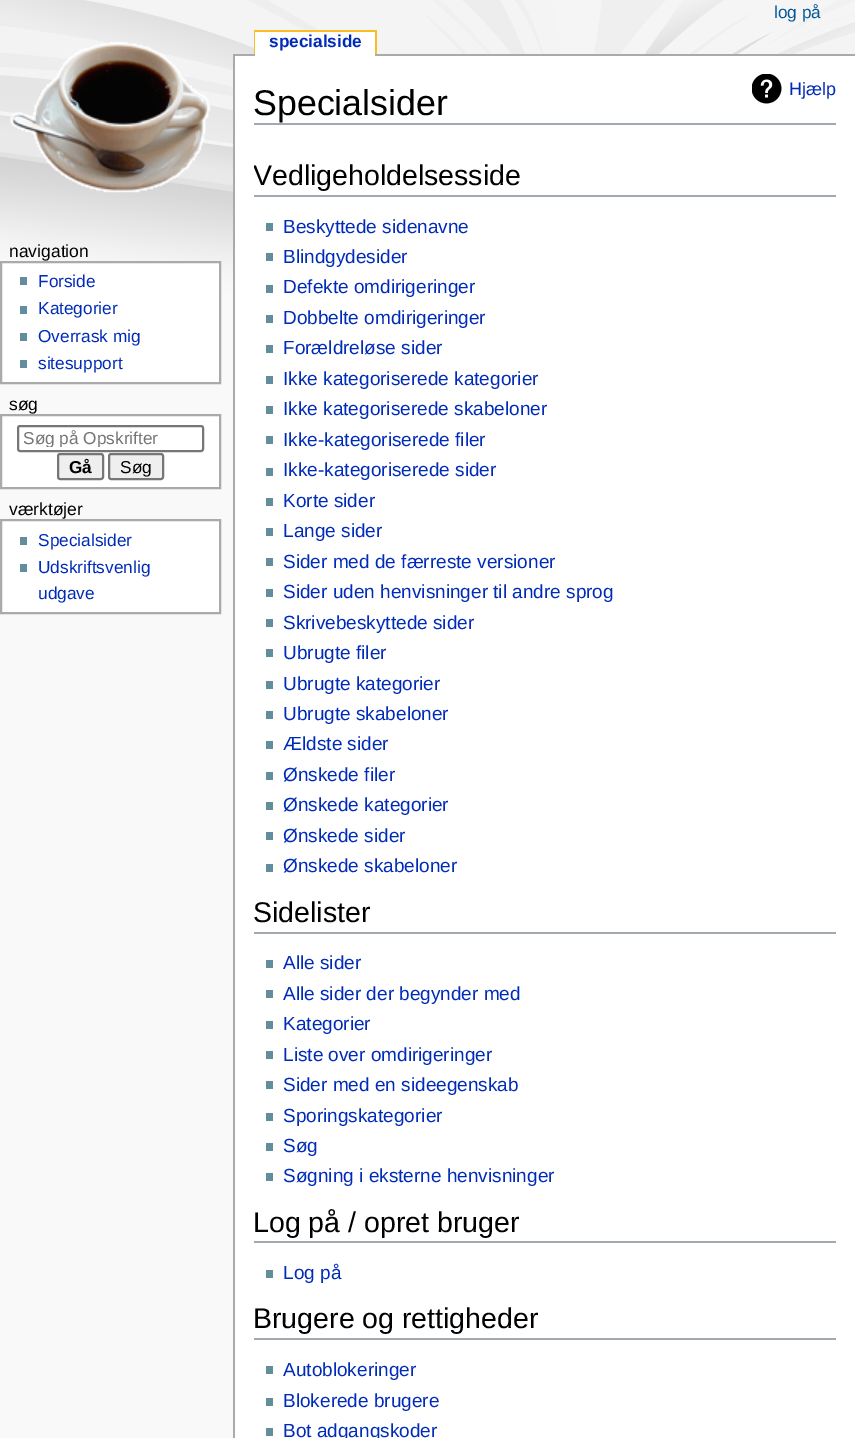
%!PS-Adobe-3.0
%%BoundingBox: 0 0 855 1438
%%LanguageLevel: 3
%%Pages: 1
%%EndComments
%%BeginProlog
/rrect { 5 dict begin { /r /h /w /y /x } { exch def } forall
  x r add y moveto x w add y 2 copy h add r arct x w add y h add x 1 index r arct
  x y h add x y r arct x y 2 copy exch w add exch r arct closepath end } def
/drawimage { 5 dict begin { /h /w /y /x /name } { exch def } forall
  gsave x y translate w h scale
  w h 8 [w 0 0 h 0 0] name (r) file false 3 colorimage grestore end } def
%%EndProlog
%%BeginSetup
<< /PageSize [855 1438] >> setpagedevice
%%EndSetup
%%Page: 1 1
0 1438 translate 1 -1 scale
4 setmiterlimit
0.976 setgray
0 0 855 1438 rectfill
(images/1.raw) 0 0 855 315 drawimage
(images/2.raw) 10 42 201 151 drawimage
0.98 0.741 0.137 setrgbcolor
254 30 123 2 rectfill
375 30 2 24 rectfill
254 30 2 24 rectfill
0.667 setgray
233 54 622 2 rectfill
1 setgray
255 32 120 24 rectfill
newpath 1 262 moveto 220 262 lineto 220 383 lineto 1 383 lineto closepath gsave fill grestore
0.667 setgray
2 setlinewidth
stroke
0.388 0.549 0.612 setrgbcolor
20 277 7 8 rectfill
20 306 7 8 rectfill
20 333 7 8 rectfill
20 360 7 8 rectfill
1 setgray
newpath 1 415 moveto 220 415 lineto 220 488 lineto 1 488 lineto closepath gsave fill grestore
0.667 setgray
stroke
0.463 setgray
18 426 185 25 2 rrect stroke
0.937 setgray
58 454 45 25 2 rrect gsave fill grestore
0.463 setgray
stroke
0.937 setgray
109 454 54 25 2 rrect gsave fill grestore
0.463 setgray
stroke
1 setgray
newpath 1 520 moveto 220 520 lineto 220 613 lineto 1 613 lineto closepath gsave fill grestore
0.667 setgray
stroke
0.388 0.549 0.612 setrgbcolor
20 537 7 8 rectfill
20 564 7 8 rectfill
1 setgray
235 56 620 1382 rectfill
0.667 setgray
233 54 2 1384 rectfill
0.635 0.663 0.694 setrgbcolor
254 123 582 2 rectfill
(images/3.raw) 752 74 30 30 drawimage
254 195 582 2 rectfill
0.388 0.549 0.612 setrgbcolor
266 223 7 8 rectfill
266 253 7 8 rectfill
266 285 7 8 rectfill
266 315 7 8 rectfill
266 345 7 8 rectfill
266 376 7 8 rectfill
266 406 7 8 rectfill
266 436 7 8 rectfill
266 468 7 8 rectfill
266 498 7 8 rectfill
266 528 7 8 rectfill
266 558 7 8 rectfill
266 589 7 8 rectfill
266 619 7 8 rectfill
266 649 7 8 rectfill
266 681 7 8 rectfill
266 711 7 8 rectfill
266 741 7 8 rectfill
266 772 7 8 rectfill
266 802 7 8 rectfill
266 832 7 8 rectfill
266 864 7 8 rectfill
0.635 0.663 0.694 setrgbcolor
254 932 582 2 rectfill
0.388 0.549 0.612 setrgbcolor
266 960 7 8 rectfill
266 990 7 8 rectfill
266 1021 7 8 rectfill
266 1051 7 8 rectfill
266 1081 7 8 rectfill
266 1113 7 8 rectfill
266 1143 7 8 rectfill
266 1173 7 8 rectfill
0.635 0.663 0.694 setrgbcolor
254 1241 582 2 rectfill
0.388 0.549 0.612 setrgbcolor
266 1270 7 8 rectfill
0.635 0.663 0.694 setrgbcolor
254 1338 582 2 rectfill
0.388 0.549 0.612 setrgbcolor
266 1366 7 8 rectfill
266 1398 7 8 rectfill
266 1428 7 8 rectfill
/LiberationSans-Regular [17.25 0 0 -17.25 0 0] selectfont
0 0.345 0.588 setrgbcolor
774 18 moveto (log på) show
/LiberationSans-Bold [17.25 0 0 -17.25 0 0] selectfont
0 0.169 0.722 setrgbcolor
269 47 moveto (specialside) show
/LiberationSans-Regular [17.5 0 0 -17.5 0 0] selectfont
0 setgray
9 257 moveto (navigation) show
/LiberationSans-Regular [17.25 0 0 -17.25 0 0] selectfont
0 0.169 0.722 setrgbcolor
38 287 moveto (Forside) show
38 314 moveto (Kategorier) show
38 342 moveto (Overrask mig) show
38 369 moveto (sitesupport) show
/LiberationSans-Regular [17.5 0 0 -17.5 0 0] selectfont
0 setgray
9 410 moveto (søg) show
gsave
23 429 157 18 rectclip
/LiberationSans-Regular [17.25 0 0 -17.25 0 0] selectfont
0.459 setgray
23 444 moveto (Søg på Opskrifter) show
grestore
/LiberationSans-Bold [17.25 0 0 -17.25 0 0] selectfont
69 473 moveto (Gå) show
/LiberationSans-Regular [17.25 0 0 -17.25 0 0] selectfont
120 473 moveto (Søg) show
/LiberationSans-Regular [17.5 0 0 -17.5 0 0] selectfont
9 515 moveto (værktøjer) show
/LiberationSans-Regular [17.25 0 0 -17.25 0 0] selectfont
0 0.169 0.722 setrgbcolor
38 546 moveto (Specialsider) show
38 573 moveto (Udskriftsvenlig) show
38 599 moveto (udgave) show
/LiberationSans-Regular [35.75 0 0 -35.75 0 0] selectfont
0 setgray
253 115 moveto (Specialsider) show
/LiberationSans-Regular [18 0 0 -18 0 0] selectfont
0 0.169 0.722 setrgbcolor
789 95 moveto (Hjælp) show
gsave
254 147 582 48 rectclip
/LiberationSans-Regular [28.5 0 0 -28.5 0 0] selectfont
0 setgray
253 185 moveto (Vedligeholdelsesside) show
grestore
/LiberationSans-Regular [19 0 0 -19 0 0] selectfont
283 233 moveto (Beskyttede sidenavne) show
283 263 moveto (Blindgydesider) show
283 293 moveto (Defekte omdirigeringer) show
283 324 moveto (Dobbelte omdirigeringer) show
283 354 moveto (Forældreløse sider) show
283 385 moveto (Ikke kategoriserede kategorier) show
283 415 moveto (Ikke kategoriserede skabeloner) show
283 446 moveto (Ikke-kategoriserede filer) show
283 476 moveto (Ikke-kategoriserede sider) show
283 507 moveto (Korte sider) show
283 537 moveto (Lange sider) show
283 568 moveto (Sider med de færreste versioner) show
283 598 moveto (Sider uden henvisninger til andre sprog) show
283 629 moveto (Skrivebeskyttede sider) show
283 659 moveto (Ubrugte filer) show
283 690 moveto (Ubrugte kategorier) show
283 720 moveto (Ubrugte skabeloner) show
283 750 moveto (Ældste sider) show
283 781 moveto (Ønskede filer) show
283 811 moveto (Ønskede kategorier) show
283 842 moveto (Ønskede sider) show
283 872 moveto (Ønskede skabeloner) show
/LiberationSans-Regular [28.5 0 0 -28.5 0 0] selectfont
0 setgray
253 922 moveto (Sidelister) show
/LiberationSans-Regular [19 0 0 -19 0 0] selectfont
0 0.169 0.722 setrgbcolor
283 969 moveto (Alle sider) show
283 1000 moveto (Alle sider der begynder med) show
283 1030 moveto (Kategorier) show
283 1061 moveto (Liste over omdirigeringer) show
283 1091 moveto (Sider med en sideegenskab) show
283 1122 moveto (Sporingskategorier) show
283 1152 moveto (Søg) show
283 1182 moveto (Søgning i eksterne henvisninger) show
/LiberationSans-Regular [28.5 0 0 -28.5 0 0] selectfont
0 setgray
253 1232 moveto (Log på / opret bruger) show
/LiberationSans-Regular [19 0 0 -19 0 0] selectfont
0 0.169 0.722 setrgbcolor
283 1279 moveto (Log på) show
/LiberationSans-Regular [28.5 0 0 -28.5 0 0] selectfont
0 setgray
253 1328 moveto (Brugere og rettigheder) show
/LiberationSans-Regular [19 0 0 -19 0 0] selectfont
0 0.169 0.722 setrgbcolor
283 1376 moveto (Autoblokeringer) show
283 1407 moveto (Blokerede brugere) show
283 1437 moveto (Bot adgangskoder) show
showpage
%%EOF
